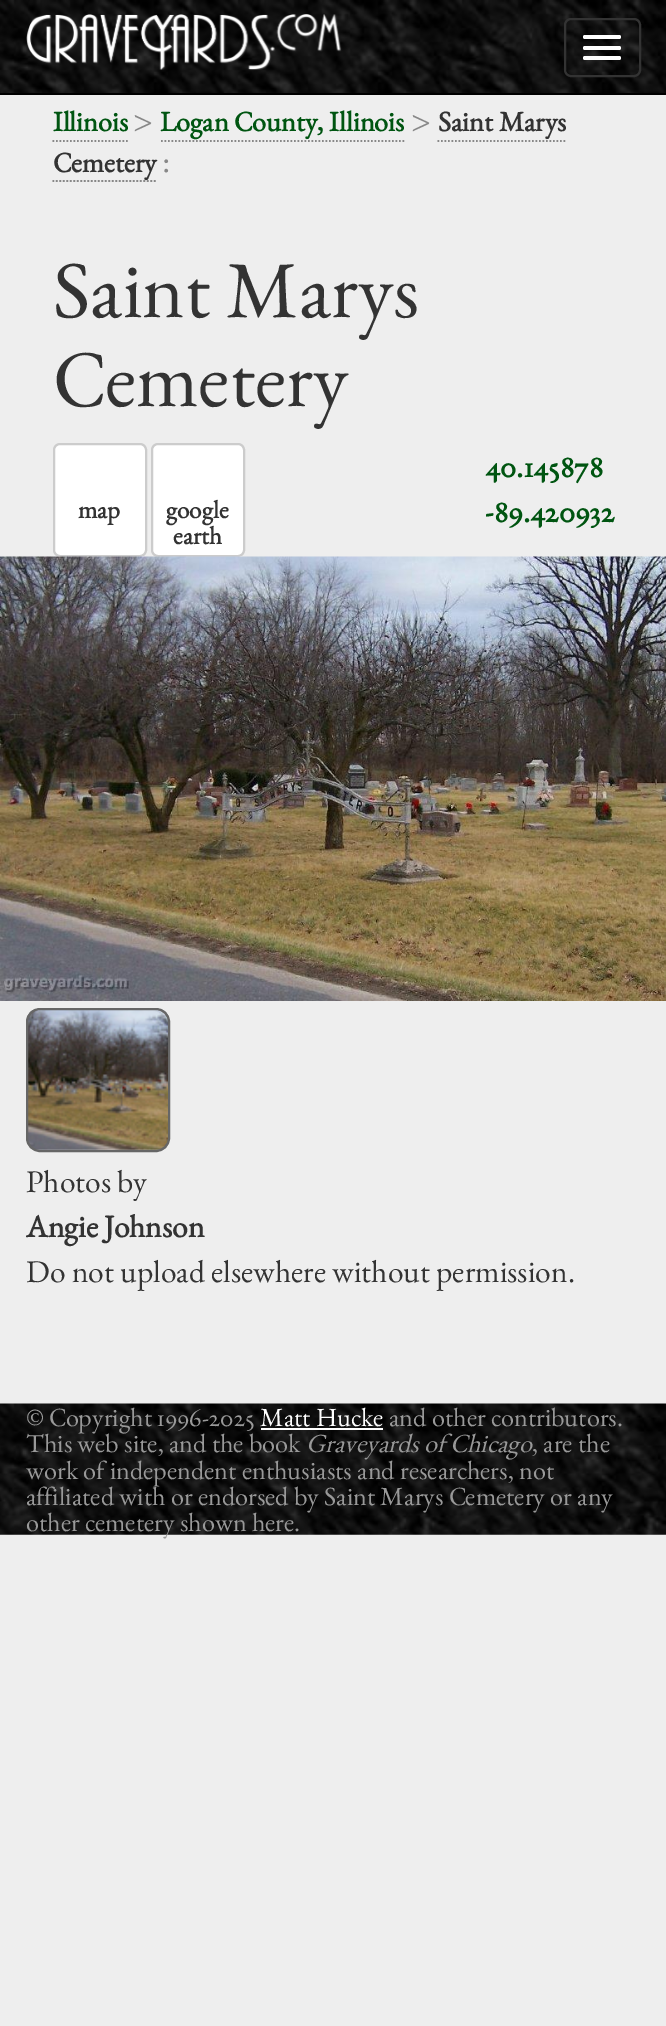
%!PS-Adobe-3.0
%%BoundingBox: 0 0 666 2026
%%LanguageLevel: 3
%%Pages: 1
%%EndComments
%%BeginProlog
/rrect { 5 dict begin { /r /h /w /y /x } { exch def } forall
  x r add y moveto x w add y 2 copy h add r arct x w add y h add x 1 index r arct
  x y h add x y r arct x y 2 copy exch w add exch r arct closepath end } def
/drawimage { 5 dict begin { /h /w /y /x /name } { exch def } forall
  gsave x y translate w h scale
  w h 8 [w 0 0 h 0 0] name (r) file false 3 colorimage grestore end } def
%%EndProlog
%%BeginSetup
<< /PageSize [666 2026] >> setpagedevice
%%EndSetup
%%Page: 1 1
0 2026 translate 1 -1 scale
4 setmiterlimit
0.933 setgray
0 0 666 2026 rectfill
(images/1.raw) 0 0 666 93 drawimage
0 setgray
0 93 666 2 rectfill
(images/2.raw) 26 14 316 56 drawimage
0.2 setgray
2 setlinewidth
565 19 75 57 6 rrect stroke
1 setgray
583 35 38 4 2 rrect fill
583 46 38 4 2 rrect fill
583 56 38 4 2 rrect fill
0.533 setgray
1.8 setlinewidth
[1.75 1.75] 0 setdash
newpath 52.5 141 moveto 128 141 lineto stroke
newpath 161 141 moveto 406 141 lineto stroke
newpath 437.5 141 moveto 567 141 lineto stroke
newpath 52.5 181 moveto 156 181 lineto stroke
1 setgray
54 444 92 112 6 rrect gsave fill grestore
0.8 setgray
2 setlinewidth
[] 0 setdash
stroke
1 setgray
152 444 92 112 6 rrect gsave fill grestore
0.8 setgray
stroke
(images/3.raw) 0 556 666 445 drawimage
(images/4.raw) 26 1009 144 141 drawimage
0.4 setgray
27 1009 142 142 13 rrect stroke
(images/5.raw) 0 1403 666 132 drawimage
1 setgray
261 1428 122 2 rectfill
/EBGaramond-Bold [28.25 0 0 -28.25 0 0] selectfont
0 0.333 0.067 setrgbcolor
53 131 moveto (Illinois) show
/EBGaramond-Regular [34 0 0 -34 0 0] selectfont
0.533 setgray
133 131 moveto (>) show
/EBGaramond-Bold [28.25 0 0 -28.25 0 0] selectfont
0 0.333 0.067 setrgbcolor
160 131 moveto (Logan County, Illinois) show
/EBGaramond-Regular [34 0 0 -34 0 0] selectfont
0.533 setgray
411 131 moveto (>) show
/EBGaramond-Bold [28.25 0 0 -28.25 0 0] selectfont
0.2 setgray
438 131 moveto (Saint Marys) show
53 172 moveto (Cemetery) show
/EBGaramond-Regular [34 0 0 -34 0 0] selectfont
0.533 setgray
162 172 moveto (:) show
/EBGaramond-Regular [80.5 0 0 -80.5 0 0] selectfont
0.2 setgray
53 317 moveto (Saint Marys) show
53 406 moveto (Cemetery) show
/EBGaramond-Bold [25 0 0 -25 0 0] selectfont
78 518 moveto (map) show
166 518 moveto (google) show
173 544 moveto (earth) show
/EBGaramond-Bold [31.5 0 0 -31.5 0 0] selectfont
0 0.333 0.067 setrgbcolor
485 477 moveto (40.145878) show
485 522 moveto (-89.420932) show
/EBGaramond-Regular [31.5 0 0 -31.5 0 0] selectfont
0.2 setgray
26 1192 moveto (Photos by) show
/EBGaramond-Bold [31.5 0 0 -31.5 0 0] selectfont
26 1237 moveto (Angie Johnson) show
/EBGaramond-Regular [31.5 0 0 -31.5 0 0] selectfont
26 1282 moveto (Do not upload elsewhere without permission.) show
/EBGaramond-Regular [26.25 0 0 -26.25 0 0] selectfont
0.6 setgray
26 1426 moveto (© Copyright 1996-2025) show
1 setgray
260 1426 moveto (Matt Hucke) show
0.6 setgray
389 1426 moveto (and other contributors.) show
26 1452 moveto (This web site, and the book) show
/EBGaramond-Italic [26.25 0 0 -26.25 0 0] selectfont
306 1452 moveto (Graveyards of Chicago) show
/EBGaramond-Regular [26.25 0 0 -26.25 0 0] selectfont
532 1452 moveto (, are the) show
26 1479 moveto (work of independent enthusiasts and researchers, not) show
26 1505 moveto (affiliated with or endorsed by Saint Marys Cemetery or any) show
26 1531 moveto (other cemetery shown here.) show
showpage
%%EOF
